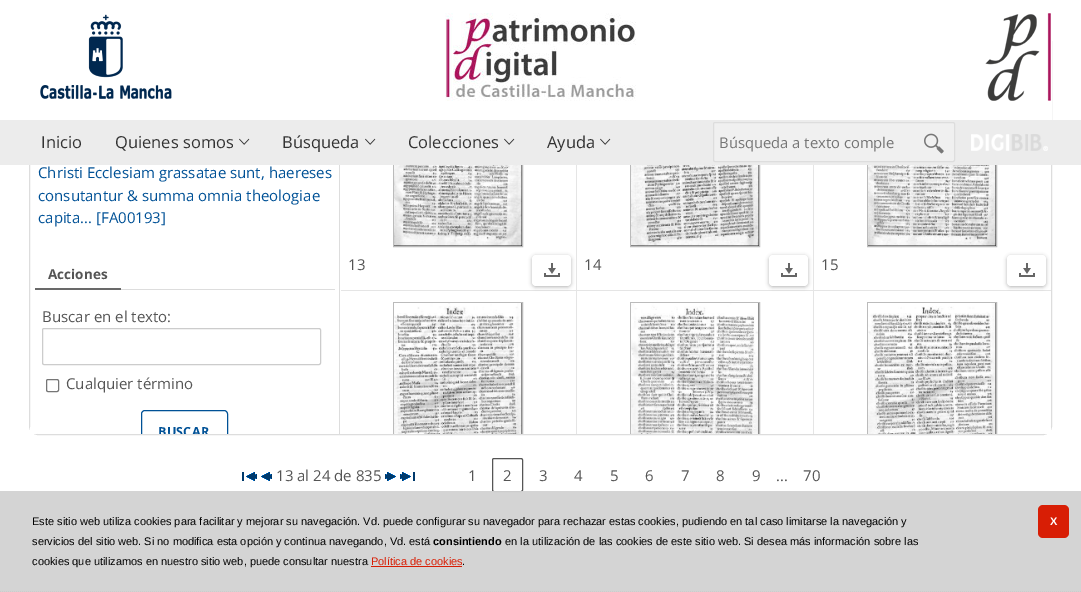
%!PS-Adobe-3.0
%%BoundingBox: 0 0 1081 592
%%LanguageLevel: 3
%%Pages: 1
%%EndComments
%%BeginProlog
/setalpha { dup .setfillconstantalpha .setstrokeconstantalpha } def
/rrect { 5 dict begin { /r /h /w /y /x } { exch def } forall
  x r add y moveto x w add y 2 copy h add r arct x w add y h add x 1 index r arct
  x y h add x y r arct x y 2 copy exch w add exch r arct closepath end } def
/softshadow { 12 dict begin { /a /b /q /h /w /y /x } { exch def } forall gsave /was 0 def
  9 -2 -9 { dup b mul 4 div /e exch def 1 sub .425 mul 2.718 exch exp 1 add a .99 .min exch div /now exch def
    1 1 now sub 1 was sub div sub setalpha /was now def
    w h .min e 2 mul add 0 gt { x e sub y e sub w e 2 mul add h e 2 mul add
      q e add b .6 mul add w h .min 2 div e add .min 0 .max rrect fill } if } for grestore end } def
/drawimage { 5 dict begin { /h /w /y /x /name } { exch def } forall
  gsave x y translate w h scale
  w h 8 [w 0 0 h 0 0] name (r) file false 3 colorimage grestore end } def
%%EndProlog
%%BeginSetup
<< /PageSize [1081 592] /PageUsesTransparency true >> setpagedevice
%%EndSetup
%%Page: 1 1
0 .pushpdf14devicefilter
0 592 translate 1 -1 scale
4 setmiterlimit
1 setgray
0 0 1081 592 rectfill
0.867 setgray
29.5 33.5 1022 401 8.5 rrect stroke
0.733 setgray
393.5 45.5 129 201 rectstroke
630.5 45.5 129 201 rectstroke
867.5 45.5 129 201 rectstroke
1 setgray
29 33 1023 87 rectfill
(images/1.raw) 445 13 191 88 drawimage
(images/2.raw) 40 14 132 85 drawimage
(images/3.raw) 985 13 66 88 drawimage
0.925 setgray
0 120 1081 45 rectfill
(images/4.raw) 239 138 11 7 drawimage
(images/4.raw) 365 138 11 7 drawimage
(images/4.raw) 504 138 11 7 drawimage
(images/4.raw) 600 138 11 7 drawimage
0.941 setgray
713.5 122.5 241 39 1.5 rrect gsave fill grestore
0.867 setgray
stroke
(images/5.raw) 924 133 20 21 drawimage
(images/6.raw) 971 134 77 17 drawimage
1 setgray
30 427 7 7 rectfill
0.867 setgray
339 165 1 269 rectfill
121 289 214 1 rectfill
0.412 setgray
35 288 86 2 rectfill
0.8 setgray
42.5 328.5 278 36 1.5 rrect stroke
0.463 setgray
46.5 379.5 12 12 1.5 rrect stroke
gsave
35 290 300 144 rectclip
0 0.318 0.588 setrgbcolor
141.5 410.5 86 37 3.5 rrect stroke
grestore
0.898 setgray
576 165 1 126 rectfill
340 290 237 1 rectfill
1 setgray
340 290 1 1 rectfill
1044 427 7 7 rectfill
(images/7.raw) 394 165 128 81 drawimage
0 setgray
532 256 39 31 4 2 0.3 softshadow
1 setgray
532 255 39 31 4 rrect fill
(images/8.raw) 544 263 16 14 drawimage
0.898 setgray
813 165 1 126 rectfill
577 290 237 1 rectfill
(images/9.raw) 631 165 128 81 drawimage
0 setgray
769 256 39 31 4 2 0.3 softshadow
1 setgray
769 255 39 31 4 rrect fill
(images/8.raw) 781 263 16 14 drawimage
0.898 setgray
814 290 237 1 rectfill
(images/10.raw) 868 165 128 81 drawimage
0 setgray
1007 256 39 31 4 2 0.3 softshadow
1 setgray
1007 255 39 31 4 rrect fill
(images/8.raw) 1019 263 16 14 drawimage
0.898 setgray
576 291 1 143 rectfill
(images/16.raw) 385 472 11 9 drawimage
(images/17.raw) 400 472 15 9 drawimage
0.333 setgray
492.5 458.5 30 33 1.5 rrect stroke
gsave
340 34 711 400 rectclip
0.733 setgray
393.5 302.5 129 201 rectstroke
grestore
(images/11.raw) 394 303 128 131 drawimage
0.898 setgray
813 291 1 143 rectfill
gsave
340 34 711 400 rectclip
0.733 setgray
867.5 302.5 129 201 rectstroke
grestore
(images/13.raw) 868 303 128 131 drawimage
(images/14.raw) 242 472 15 9 drawimage
(images/15.raw) 261 472 11 9 drawimage
/OpenSans-Regular [16.5 0 0 -16.5 0 0] selectfont
0.2 setgray
41 148 moveto (Inicio) show
115 148 moveto (Quienes somos) show
282 148 moveto (Búsqueda) show
408 148 moveto (Colecciones) show
547 148 moveto (Ayuda) show
/OpenSans-Regular [14.8 0 0 -14.8 0 0] selectfont
0.459 setgray
719 148 moveto (Búsqueda a texto comple) show
/OpenSans-Regular [15 0 0 -15 0 0] selectfont
0 0.318 0.588 setrgbcolor
38 178 moveto (Christi Ecclesiam grassatae sunt, haereses) show
38 201 moveto (consutantur & summa omnia theologiae) show
38 223 moveto (capita... [FA00193]) show
/OpenSans-Bold [13.5 0 0 -13.5 0 0] selectfont
0.333 setgray
48 279 moveto (Acciones) show
/OpenSans-Regular [15 0 0 -15 0 0] selectfont
42 322 moveto (Buscar en el texto:) show
66 389 moveto (Cualquier término) show
gsave
35 290 300 144 rectclip
/OpenSans-Bold [12.5 0 0 -12.5 0 0] selectfont
0 0.318 0.588 setrgbcolor
158 436 moveto 0.25 0 (BUSCAR) ashow
grestore
348 270 moveto (13) show
584 270 moveto (14) show
821 270 moveto (15) show
276 481 moveto (13 al 24 de 835) show
468 481 moveto (1) show
503 481 moveto (2) show
539 481 moveto (3) show
574 481 moveto (4) show
610 481 moveto (5) show
645 481 moveto (6) show
681 481 moveto (7) show
716 481 moveto (8) show
752 481 moveto (9) show
gsave
340 34 711 400 rectclip
0.733 setgray
630.5 302.5 129 201 rectstroke
grestore
(images/12.raw) 631 303 128 131 drawimage
776 481 moveto (...) show
803 481 moveto (70) show
0.95 setalpha
0.824 setgray
0 491 1081 101 rectfill
1 setalpha
0.8 setgray
[1 1] 0 setdash
newpath 0 591.5 moveto 1081 591.5 lineto stroke
/LiberationSans-Regular [11 0 0 -11 0 0] selectfont
0 setgray
32 525 moveto (Este sitio web utiliza cookies para facilitar y mejorar su navegación. Vd. puede configurar su navegador para rechazar estas cookies, pudiendo en tal caso limitarse la navegación y) show
32 545 moveto (servicios del sitio web. Si no modifica esta opción y continua navegando, Vd. está) show
/LiberationSans-Bold [11 0 0 -11 0 0] selectfont
433 545 moveto (consintiendo) show
/LiberationSans-Regular [11 0 0 -11 0 0] selectfont
505 545 moveto (en la utilización de las cookies de este sitio web. Si desea más información sobre las) show
32 565 moveto (cookies que utilizamos en nuestro sitio web, puede consultar nuestra) show
0.847 0.118 0.02 setrgbcolor
371 565 moveto (Política de cookies) show
0 setgray
462 565 moveto (.) show
0.847 0.118 0.02 setrgbcolor
371 566 91 1 rectfill
1038 505 31 33 5 rrect fill
/LiberationSans-Bold [11 0 0 -11 0 0] selectfont
1 setgray
1050 525 moveto -1 0 (X) ashow
.poppdf14devicefilter showpage
%%EOF
